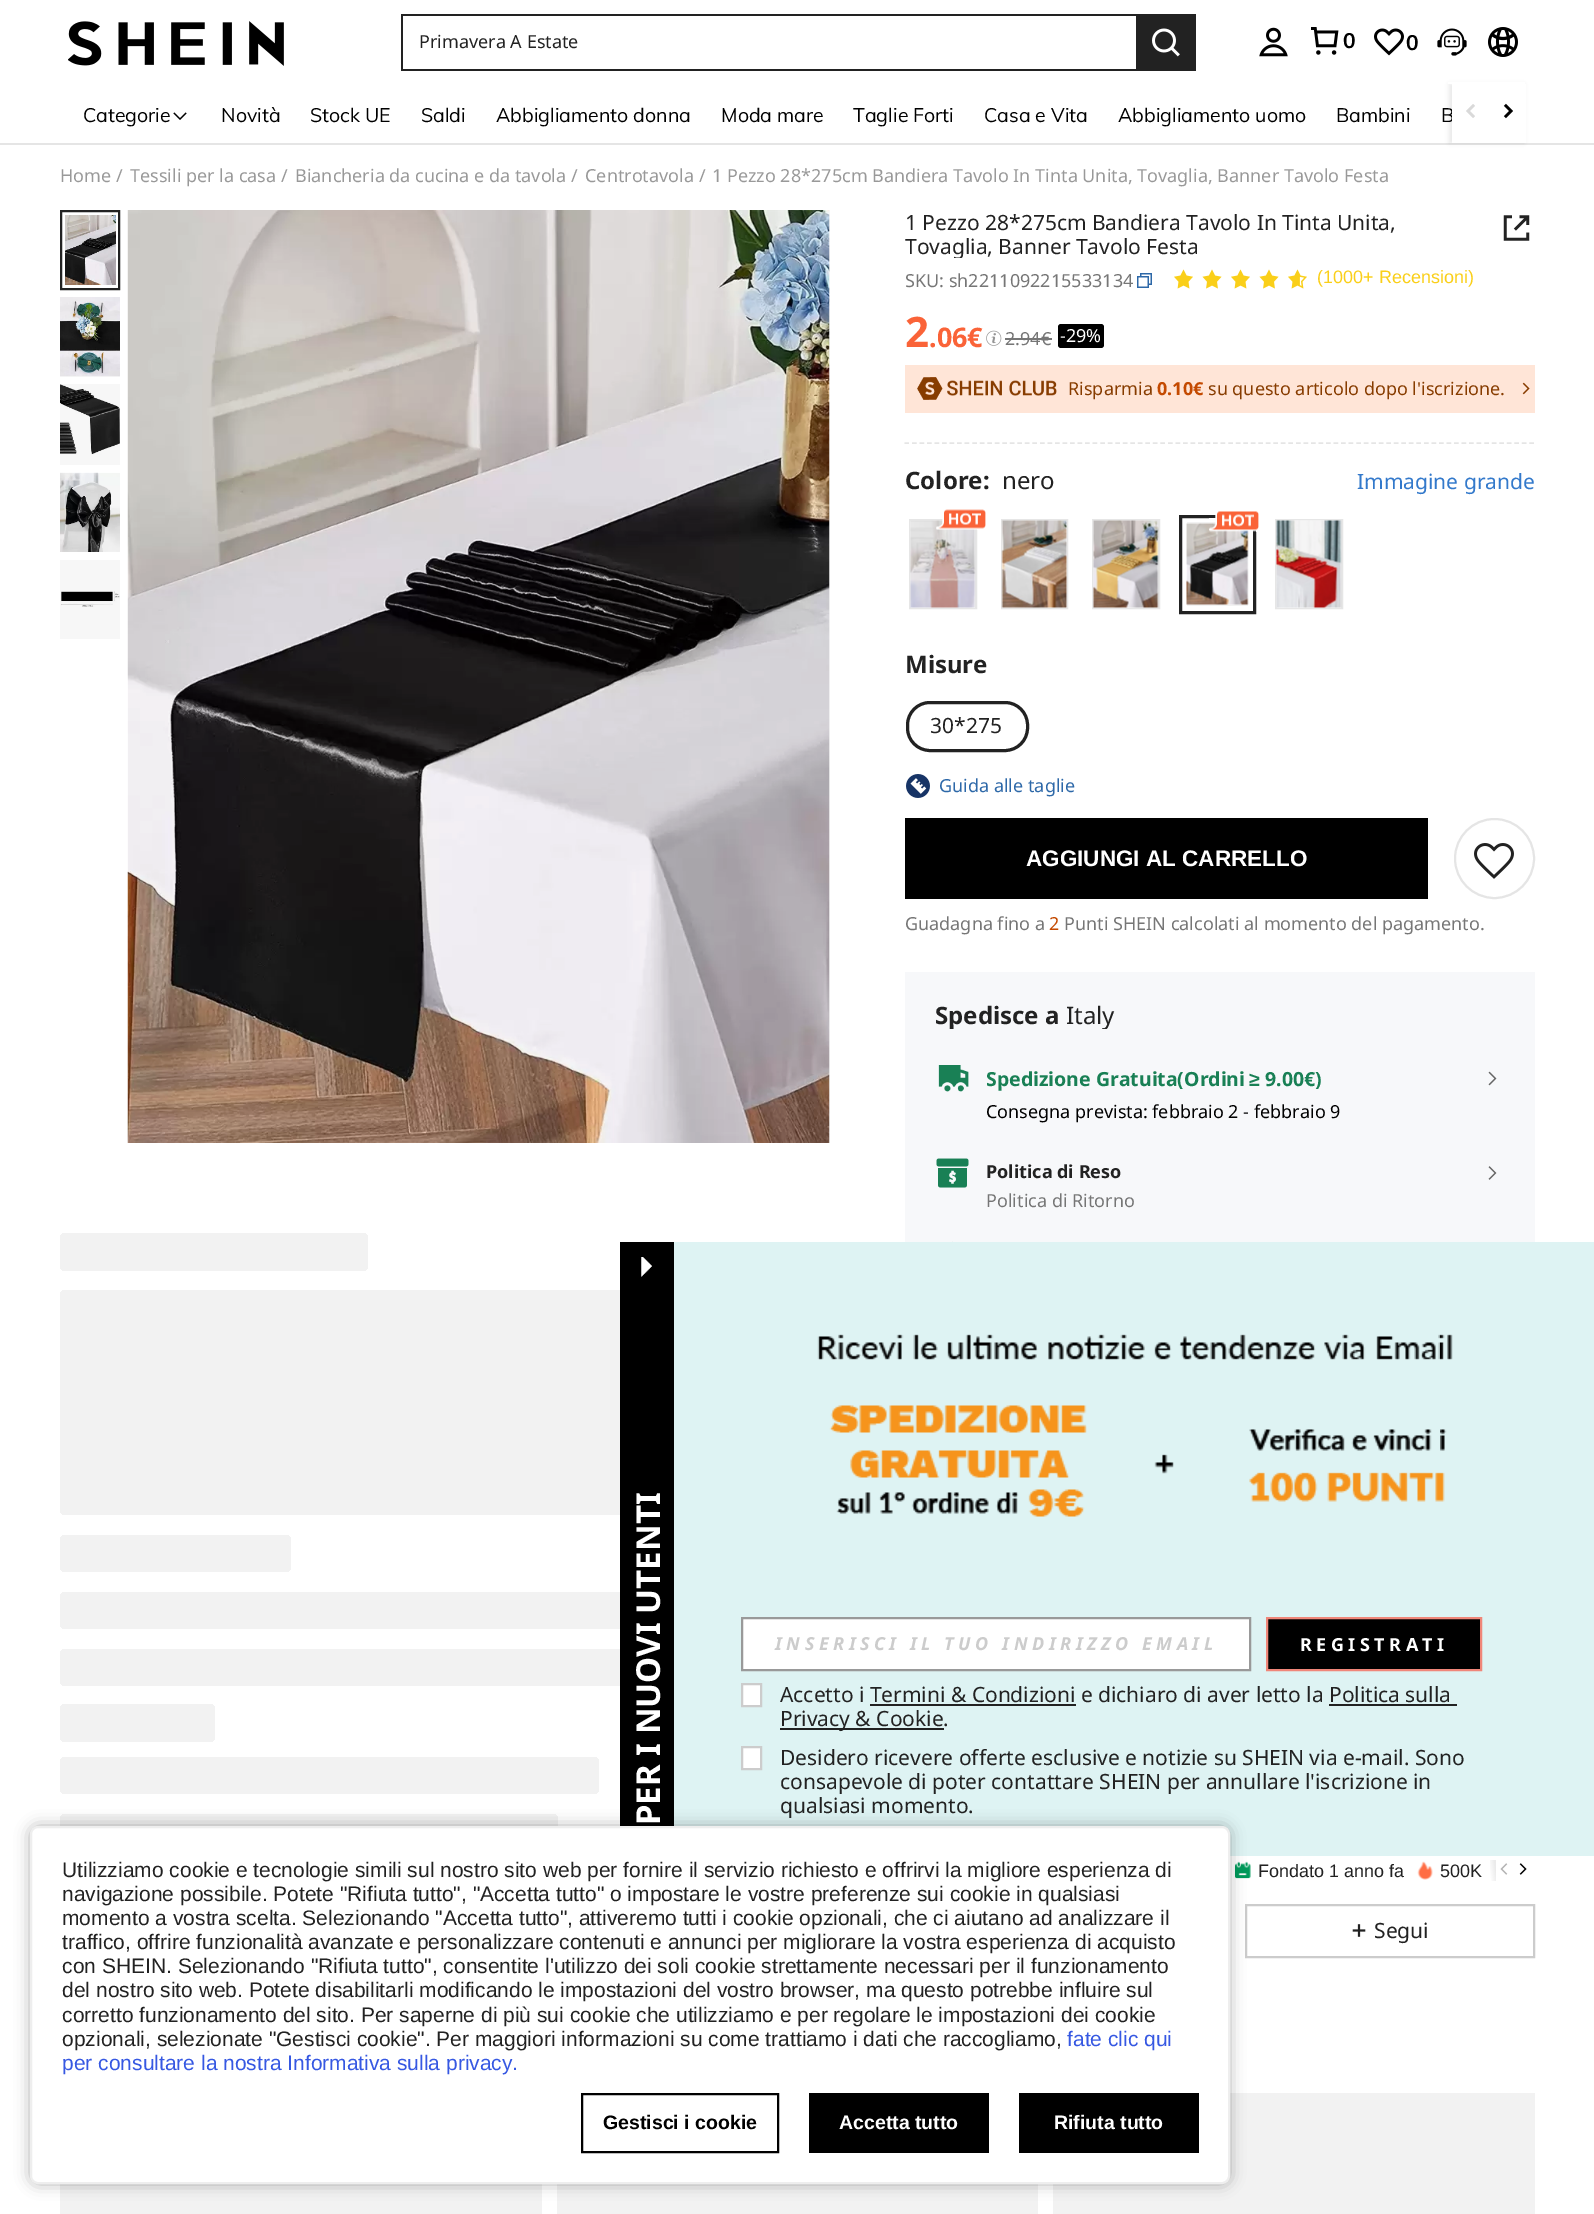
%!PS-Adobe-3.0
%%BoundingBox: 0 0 1594 2214
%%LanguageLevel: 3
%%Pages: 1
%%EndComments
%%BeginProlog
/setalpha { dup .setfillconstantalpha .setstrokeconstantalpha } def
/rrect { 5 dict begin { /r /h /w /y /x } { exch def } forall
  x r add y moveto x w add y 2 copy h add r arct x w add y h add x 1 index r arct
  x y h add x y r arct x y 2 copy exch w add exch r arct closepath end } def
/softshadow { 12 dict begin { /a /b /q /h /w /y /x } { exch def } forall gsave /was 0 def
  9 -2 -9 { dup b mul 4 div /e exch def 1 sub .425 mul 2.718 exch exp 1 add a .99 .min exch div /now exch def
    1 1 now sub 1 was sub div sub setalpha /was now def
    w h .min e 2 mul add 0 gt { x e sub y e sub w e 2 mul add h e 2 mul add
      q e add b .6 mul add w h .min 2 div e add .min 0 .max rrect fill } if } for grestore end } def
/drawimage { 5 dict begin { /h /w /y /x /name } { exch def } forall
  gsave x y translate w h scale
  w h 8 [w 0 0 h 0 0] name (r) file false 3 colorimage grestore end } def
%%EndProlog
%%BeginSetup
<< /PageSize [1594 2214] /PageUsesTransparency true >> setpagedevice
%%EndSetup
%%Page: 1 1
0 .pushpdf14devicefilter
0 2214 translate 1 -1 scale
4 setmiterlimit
1 setgray
0 0 1594 2214 rectfill
0.898 setgray
0 143 1594 2 rectfill
0 setgray
1449 84 75 59 0 2 0.08 softshadow
1 setgray
1448 82 77 2 rectfill
(images/1.raw) 68 21 216 45 drawimage
0.133 setgray
401 14 735 2 rectfill
401 69 735 2 rectfill
401 14 2 57 rectfill
1136 14 60 57 rectfill
(images/2.raw) 1152 28 28 29 drawimage
(images/3.raw) 1259 27 29 30 drawimage
(images/4.raw) 1311 27 28 28 drawimage
(images/5.raw) 1374 28 30 28 drawimage
(images/6.raw) 1437 28 30 28 drawimage
(images/7.raw) 1488 27 30 30 drawimage
(images/8.raw) 173 112 14 8 drawimage
(images/11.raw) 65 215 51 70 drawimage
2 setlinewidth
61 211 58 78 rectstroke
0.969 setgray
60 376 60 1 rectfill
(images/12.raw) 60 297 60 80 drawimage
60 455 60 10 rectfill
(images/13.raw) 60 384 60 71 drawimage
(images/14.raw) 60 472 60 80 drawimage
60 560 60 79 rectfill
(images/15.raw) 61 591 59 16 drawimage
829 210 1 933 rectfill
(images/16.raw) 127 210 703 933 drawimage
gsave 60 1233 308 38 6 rrect clip newpath
<< /ShadingType 2 /ColorSpace /DeviceRGB /Coords [60 1252 1290 1252] /Extend [true true] /Function << /FunctionType 3 /Domain [0 1] /Functions [<< /FunctionType 2 /Domain [0 1] /C0 [0.949 0.949 0.949] /C1 [0.949 0.949 0.949] /N 1 >> << /FunctionType 2 /Domain [0 1] /C0 [0.949 0.949 0.949] /C1 [0.976 0.976 0.976] /N 1 >> << /FunctionType 2 /Domain [0 1] /C0 [0.976 0.976 0.976] /C1 [0.949 0.949 0.949] /N 1 >> << /FunctionType 2 /Domain [0 1] /C0 [0.949 0.949 0.949] /C1 [0.949 0.949 0.949] /N 1 >>] /Bounds [0.25 0.38 0.63] /Encode [0 1 0 1 0 1 0 1] >> >> shfill grestore
gsave 60 1290 770 225 6 rrect clip newpath
<< /ShadingType 2 /ColorSpace /DeviceRGB /Coords [60 1403 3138 1402] /Extend [true true] /Function << /FunctionType 3 /Domain [0 1] /Functions [<< /FunctionType 2 /Domain [0 1] /C0 [0.949 0.949 0.949] /C1 [0.949 0.949 0.949] /N 1 >> << /FunctionType 2 /Domain [0 1] /C0 [0.949 0.949 0.949] /C1 [0.976 0.976 0.976] /N 1 >> << /FunctionType 2 /Domain [0 1] /C0 [0.976 0.976 0.976] /C1 [0.949 0.949 0.949] /N 1 >> << /FunctionType 2 /Domain [0 1] /C0 [0.949 0.949 0.949] /C1 [0.949 0.949 0.949] /N 1 >>] /Bounds [0.25 0.38 0.63] /Encode [0 1 0 1 0 1 0 1] >> >> shfill grestore
gsave 60 1535 231 37 6 rrect clip newpath
<< /ShadingType 2 /ColorSpace /DeviceRGB /Coords [60 1553 984 1553] /Extend [true true] /Function << /FunctionType 3 /Domain [0 1] /Functions [<< /FunctionType 2 /Domain [0 1] /C0 [0.949 0.949 0.949] /C1 [0.949 0.949 0.949] /N 1 >> << /FunctionType 2 /Domain [0 1] /C0 [0.949 0.949 0.949] /C1 [0.976 0.976 0.976] /N 1 >> << /FunctionType 2 /Domain [0 1] /C0 [0.976 0.976 0.976] /C1 [0.949 0.949 0.949] /N 1 >> << /FunctionType 2 /Domain [0 1] /C0 [0.949 0.949 0.949] /C1 [0.949 0.949 0.949] /N 1 >>] /Bounds [0.25 0.38 0.63] /Encode [0 1 0 1 0 1 0 1] >> >> shfill grestore
gsave 60 1592 770 37 6 rrect clip newpath
<< /ShadingType 2 /ColorSpace /DeviceRGB /Coords [60 1610 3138 1610] /Extend [true true] /Function << /FunctionType 3 /Domain [0 1] /Functions [<< /FunctionType 2 /Domain [0 1] /C0 [0.949 0.949 0.949] /C1 [0.949 0.949 0.949] /N 1 >> << /FunctionType 2 /Domain [0 1] /C0 [0.949 0.949 0.949] /C1 [0.976 0.976 0.976] /N 1 >> << /FunctionType 2 /Domain [0 1] /C0 [0.976 0.976 0.976] /C1 [0.949 0.949 0.949] /N 1 >> << /FunctionType 2 /Domain [0 1] /C0 [0.949 0.949 0.949] /C1 [0.949 0.949 0.949] /N 1 >>] /Bounds [0.25 0.38 0.63] /Encode [0 1 0 1 0 1 0 1] >> >> shfill grestore
gsave 60 1649 770 37 6 rrect clip newpath
<< /ShadingType 2 /ColorSpace /DeviceRGB /Coords [60 1667 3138 1667] /Extend [true true] /Function << /FunctionType 3 /Domain [0 1] /Functions [<< /FunctionType 2 /Domain [0 1] /C0 [0.949 0.949 0.949] /C1 [0.949 0.949 0.949] /N 1 >> << /FunctionType 2 /Domain [0 1] /C0 [0.949 0.949 0.949] /C1 [0.976 0.976 0.976] /N 1 >> << /FunctionType 2 /Domain [0 1] /C0 [0.976 0.976 0.976] /C1 [0.949 0.949 0.949] /N 1 >> << /FunctionType 2 /Domain [0 1] /C0 [0.949 0.949 0.949] /C1 [0.949 0.949 0.949] /N 1 >>] /Bounds [0.25 0.38 0.63] /Encode [0 1 0 1 0 1 0 1] >> >> shfill grestore
gsave 60 1704 155 38 6 rrect clip newpath
<< /ShadingType 2 /ColorSpace /DeviceRGB /Coords [60 1723 678 1723] /Extend [true true] /Function << /FunctionType 3 /Domain [0 1] /Functions [<< /FunctionType 2 /Domain [0 1] /C0 [0.949 0.949 0.949] /C1 [0.949 0.949 0.949] /N 1 >> << /FunctionType 2 /Domain [0 1] /C0 [0.949 0.949 0.949] /C1 [0.976 0.976 0.976] /N 1 >> << /FunctionType 2 /Domain [0 1] /C0 [0.976 0.976 0.976] /C1 [0.949 0.949 0.949] /N 1 >> << /FunctionType 2 /Domain [0 1] /C0 [0.949 0.949 0.949] /C1 [0.949 0.949 0.949] /N 1 >>] /Bounds [0.25 0.38 0.63] /Encode [0 1 0 1 0 1 0 1] >> >> shfill grestore
gsave 60 1757 539 37 6 rrect clip newpath
<< /ShadingType 2 /ColorSpace /DeviceRGB /Coords [60 1775 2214 1775] /Extend [true true] /Function << /FunctionType 3 /Domain [0 1] /Functions [<< /FunctionType 2 /Domain [0 1] /C0 [0.949 0.949 0.949] /C1 [0.949 0.949 0.949] /N 1 >> << /FunctionType 2 /Domain [0 1] /C0 [0.949 0.949 0.949] /C1 [0.976 0.976 0.976] /N 1 >> << /FunctionType 2 /Domain [0 1] /C0 [0.976 0.976 0.976] /C1 [0.949 0.949 0.949] /N 1 >> << /FunctionType 2 /Domain [0 1] /C0 [0.949 0.949 0.949] /C1 [0.949 0.949 0.949] /N 1 >>] /Bounds [0.25 0.38 0.63] /Encode [0 1 0 1 0 1 0 1] >> >> shfill grestore
gsave 60 1814 498 37 6 rrect clip newpath
<< /ShadingType 2 /ColorSpace /DeviceRGB /Coords [60 1832 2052 1832] /Extend [true true] /Function << /FunctionType 3 /Domain [0 1] /Functions [<< /FunctionType 2 /Domain [0 1] /C0 [0.949 0.949 0.949] /C1 [0.949 0.949 0.949] /N 1 >> << /FunctionType 2 /Domain [0 1] /C0 [0.949 0.949 0.949] /C1 [0.976 0.976 0.976] /N 1 >> << /FunctionType 2 /Domain [0 1] /C0 [0.976 0.976 0.976] /C1 [0.949 0.949 0.949] /N 1 >> << /FunctionType 2 /Domain [0 1] /C0 [0.949 0.949 0.949] /C1 [0.949 0.949 0.949] /N 1 >>] /Bounds [0.25 0.38 0.63] /Encode [0 1 0 1 0 1 0 1] >> >> shfill grestore
(images/17.raw) 1137 273 15 15 drawimage
(images/18.raw) 1174 269 19 20 drawimage
(images/19.raw) 1202 269 20 20 drawimage
(images/18.raw) 1231 269 19 20 drawimage
(images/19.raw) 1259 269 20 20 drawimage
(images/20.raw) 1288 269 19 20 drawimage
(images/21.raw) 1503 215 27 26 drawimage
(images/22.raw) 986 330 16 16 drawimage
0.463 setgray
1005 338 47 2 rectfill
0 setgray
1058 324 46 24 3 rrect fill
1 0.898 0.843 setrgbcolor
905 365 630 48 rectfill
(images/23.raw) 917 377 140 23 drawimage
(images/24.raw) 1522 382 8 13 drawimage
0.898 setgray
1.5 setlinewidth
[4.5 3.03] 0 setdash
newpath 904.5 443 moveto 1534.5 443 lineto stroke
0.902 setgray
2 setlinewidth
[] 0 setdash
910 520 66 88 rectstroke
1 setgray
911 607 64 1 rectfill
(images/26.raw) 910 520 66 88 drawimage
0.03 setalpha
0 setgray
911 521 64 87 rectfill
1 setalpha
(images/25.raw) 936 509 50 21 drawimage
0.902 setgray
1002 520 65 88 rectstroke
1 setgray
1002 521 65 87 rectfill
(images/27.raw) 1001 520 66 88 drawimage
0.03 setalpha
0 setgray
1002 521 65 87 rectfill
1 setalpha
0.902 setgray
1093 520 66 88 rectstroke
1 setgray
1094 607 64 1 rectfill
(images/28.raw) 1093 520 66 88 drawimage
0.03 setalpha
0 setgray
1094 521 64 87 rectfill
1 setalpha
0.133 setgray
3 setlinewidth
1180.5 516.5 74 96 rectstroke
0.949 setgray
1187 522 61 84 rectfill
0.969 setgray
1187 530 61 75 rectfill
(images/30.raw) 1186 523 63 82 drawimage
(images/29.raw) 1209 511 50 21 drawimage
0.902 setgray
2 setlinewidth
1276 520 66 88 rectstroke
1 setgray
1277 607 64 1 rectfill
(images/31.raw) 1276 520 66 88 drawimage
0.03 setalpha
0 setgray
1277 521 64 87 rectfill
1 setalpha
0.133 setgray
3 setlinewidth
907.5 702.5 120 48 22.5 rrect stroke
(images/32.raw) 906 774 24 24 drawimage
0 setgray
905 818 523 81 rectfill
0.898 setgray
2 setlinewidth
newpath 1494.5 858.5 39.5 0 360 arc closepath stroke
(images/33.raw) 1474 843 40 36 drawimage
0.969 0.973 0.98 setrgbcolor
905 972 630 270 rectfill
(images/34.raw) 938 1065 31 27 drawimage
(images/35.raw) 1488 1071 9 15 drawimage
(images/36.raw) 936 1158 33 30 drawimage
(images/37.raw) 1488 1166 9 14 drawimage
(images/38.raw) 952 1241 1 1 drawimage
(images/39.raw) 1235 1861 16 18 drawimage
(images/40.raw) 1417 1861 16 19 drawimage
gsave newpath 1490 1860 moveto 1496 1860 lineto 1496 1881 lineto 1490 1881 lineto closepath clip newpath
<< /ShadingType 2 /ColorSpace /DeviceRGB /Coords [1489 1871 1496 1870] /Extend [true true] /Function << /FunctionType 3 /Domain [0 1] /Functions [<< /FunctionType 2 /Domain [0 1] /C0 [1 1 1] /C1 [1 1 1] /N 1 >> << /FunctionType 2 /Domain [0 1] /C0 [1 1 1] /C1 [0.922 0.922 0.922] /N 1 >> << /FunctionType 2 /Domain [0 1] /C0 [0.922 0.922 0.922] /C1 [0.922 0.922 0.922] /N 1 >>] /Bounds [0.01 0.99] /Encode [0 1 0 1 0 1] >> >> shfill grestore
(images/41.raw) 1500 1863 8 12 drawimage
(images/42.raw) 1519 1863 8 12 drawimage
0.8 setgray
1246 1905 288 52 rectstroke
(images/43.raw) 1352 1924 14 13 drawimage
0.949 setgray
60 2184 482 30 rectfill
557 2184 481 30 rectfill
1053 2093 482 121 rectfill
0 setgray
620 1242 54 584 rectfill
(images/44.raw) 641 1257 11 20 drawimage
0.871 0.953 0.953 setrgbcolor
674 1242 920 614 rectfill
(images/45.raw) 817 1334 636 183 drawimage
1 setgray
newpath 742 1618 moveto 1250 1618 lineto 1250 1670 lineto 742 1670 lineto closepath gsave fill grestore
0.6 setgray
stroke
0 setgray
newpath 1267 1618 moveto 1481 1618 lineto 1481 1670 lineto 1267 1670 lineto closepath gsave fill grestore
0.941 0.525 0.475 setrgbcolor
stroke
1 setgray
newpath 742 1684 moveto 761 1684 lineto 761 1706 lineto 742 1706 lineto closepath gsave fill grestore
0.8 setgray
stroke
0.133 setgray
870 1704 206 2 rectfill
1329 1704 128 2 rectfill
780 1728 164 2 rectfill
1 setgray
newpath 742 1747 moveto 761 1747 lineto 761 1769 lineto 742 1769 lineto closepath gsave fill grestore
0.8 setgray
stroke
0 setgray
30 1826 1200 358 8 7.5 0.3 softshadow
1 setgray
31 1827 1198 356 7 rrect gsave fill grestore
0.933 setgray
stroke
0 setgray
582 2094 196 58 rectstroke
809 2093 180 60 rectfill
1019 2093 180 60 rectfill
/NotoSans-Regular [18 0 0 -18 0 0] selectfont
0.133 setgray
419 48 moveto (Primavera A Estate) show
/Muli-Bold [21 0 0 -21 0 0] selectfont
0 setgray
1343 48 moveto (0) show
1406 50 moveto (0) show
/Muli-Regular [19.5 0 0 -19.5 0 0] selectfont
83 122 moveto (Categorie) show
221 122 moveto (Novità) show
310 122 moveto (Stock UE) show
421 122 moveto (Saldi) show
496 122 moveto (Abbigliamento donna) show
721 122 moveto (Moda mare) show
853 122 moveto (Taglie Forti) show
984 122 moveto (Casa e Vita) show
1118 122 moveto (Abbigliamento uomo) show
1336 122 moveto (Bambini) show
1441 122 moveto (B) show
1 setgray
1452 84 74 59 rectfill
(images/9.raw) 1466 104 9 14 drawimage
(images/10.raw) 1503 103 10 16 drawimage
/NotoSans-Regular [18 0 0 -18 0 0] selectfont
0.6 setgray
60 182 moveto (Home /) show
130 182 moveto (Tessili per la casa /) show
295 182 moveto (Biancheria da cucina e da tavola /) show
585 182 moveto (Centrotavola /) show
712 182 moveto (1 Pezzo 28*275cm Bandiera Tavolo In Tinta Unita, Tovaglia, Banner Tavolo Festa) show
/NotoSans-Regular [21 0 0 -21 0 0] selectfont
0.133 setgray
905 230 moveto (1 Pezzo 28*275cm Bandiera Tavolo In Tinta Unita,) show
gsave
905 210 630 48 rectclip
905 254 moveto (Tovaglia, Banner Tavolo Festa) show
grestore
/NotoSans-Regular [18 0 0 -18 0 0] selectfont
0.463 setgray
905 287 moveto (SKU: sh2211092215533134) show
/LiberationSans-Regular [18 0 0 -18 0 0] selectfont
0.98 0.812 0.098 setrgbcolor
1317 283 moveto (\(1000+ Recensioni\)) show
/NotoSans-Bold [42 0 0 -42 0 0] selectfont
0.98 0.388 0.22 setrgbcolor
905 347 moveto (2) show
/NotoSans-Bold [27 0 0 -27 0 0] selectfont
929 347 moveto (.06€) show
/NotoSans-Regular [18 0 0 -18 0 0] selectfont
0.463 setgray
1005 345 moveto (2.94€) show
1 setgray
1060 342 moveto (-29%) show
0.529 0.235 0 setrgbcolor
1068 395 moveto (Risparmia) show
/NotoSans-Bold [18 0 0 -18 0 0] selectfont
0.769 0.29 0.004 setrgbcolor
1157 395 moveto (0.10€) show
/NotoSans-Regular [18 0 0 -18 0 0] selectfont
0.529 0.235 0 setrgbcolor
1208 395 moveto (su questo articolo dopo l'iscrizione.) show
/NotoSans-Bold [24 0 0 -24 0 0] selectfont
0.133 setgray
905 489 moveto (Colore:) show
/NotoSans-Regular [24 0 0 -24 0 0] selectfont
1002 489 moveto (nero) show
/NotoSans-Regular [21 0 0 -21 0 0] selectfont
0.2 0.475 0.796 setrgbcolor
1357 489 moveto (Immagine grande) show
/NotoSans-Bold [24 0 0 -24 0 0] selectfont
0.133 setgray
905 673 moveto (Misure) show
/NotoSans-Regular [21 0 0 -21 0 0] selectfont
930 733 moveto (30*275) show
/NotoSans-Regular [18 0 0 -18 0 0] selectfont
0.176 0.408 0.659 setrgbcolor
939 792 moveto (Guida alle taglie) show
/LiberationSans-Bold [22.5 0 0 -22.5 0 0] selectfont
1 setgray
1026 866 moveto (AGGIUNGI AL CARRELLO) show
/NotoSans-Regular [18 0 0 -18 0 0] selectfont
0.463 setgray
905 930 moveto (Guadagna fino a) show
0.769 0.29 0.004 setrgbcolor
1049 930 moveto (2) show
0.463 setgray
1064 930 moveto (Punti SHEIN calcolati al momento del pagamento.) show
gsave
905 1002 630 27 rectclip
/NotoSans-Bold [24 0 0 -24 0 0] selectfont
0.133 setgray
935 1024 moveto (Spedisce a) show
/NotoSans-Regular [24 0 0 -24 0 0] selectfont
1066 1024 moveto (Italy) show
grestore
/NotoSans-Bold [19.5 0 0 -19.5 0 0] selectfont
0.098 0.502 0.333 setrgbcolor
986 1086 moveto (Spedizione Gratuita\(Ordini) show
/LiberationSans-Bold [19.5 0 0 -19.5 0 0] selectfont
1249 1086 moveto (≥) show
/NotoSans-Bold [19.5 0 0 -19.5 0 0] selectfont
1265 1086 moveto (9.00€\)) show
/NotoSans-Regular [18 0 0 -18 0 0] selectfont
0 setgray
986 1118 moveto (Consegna prevista: febbraio 2 - febbraio 9) show
/NotoSans-Bold [18 0 0 -18 0 0] selectfont
0.133 setgray
986 1178 moveto (Politica di Reso) show
/NotoSans-Regular [18 0 0 -18 0 0] selectfont
0.463 setgray
986 1207 moveto (Politica di Ritorno) show
/LiberationSans-Regular [18 0 0 -18 0 0] selectfont
0.133 setgray
1258 1877 moveto (Fondato 1 anno fa) show
1440 1877 moveto (500K) show
/NotoSans-Regular [21 0 0 -21 0 0] selectfont
1374 1938 moveto (Segui) show
/NotoSans-Bold [33 0 0 -33 0 0] selectfont
1 setgray
gsave 660 1825 translate -90 rotate 0 0 moveto (PER I NUOVI UTENTI) show grestore
/NotoSans-BoldItalic [18 0 0 -18 0 0] selectfont
0.8 setgray
775 1650 moveto 4.5 0 (INSERISCI IL TUO INDIRIZZO EMAIL) ashow
/NotoSans-Bold [18 0 0 -18 0 0] selectfont
1 setgray
1300 1651 moveto 4.5 0 (REGISTRATI) ashow
/NotoSans-Regular [21 0 0 -21 0 0] selectfont
0.133 setgray
780 1702 moveto (Accetto i Termini & Condizioni e dichiaro di aver letto la Politica sulla) show
780 1726 moveto (Privacy & Cookie.) show
780 1765 moveto (Desidero ricevere offerte esclusive e notizie su SHEIN via e-mail. Sono) show
780 1789 moveto (consapevole di poter contattare SHEIN per annullare l'iscrizione in) show
780 1813 moveto (qualsiasi momento.) show
/LiberationSans-Regular [21 0 0 -21 0 0] selectfont
62 1877 moveto (Utilizziamo cookie e tecnologie simili sul nostro sito web per fornire il servizio richiesto e offrirvi la migliore esperienza di) show
62 1901 moveto (navigazione possibile. Potete "Rifiuta tutto", "Accetta tutto" o impostare le vostre preferenze sui cookie in qualsiasi) show
62 1925 moveto (momento a vostra scelta. Selezionando "Accetta tutto", attiveremo tutti i cookie opzionali, che ci aiutano ad analizzare il) show
62 1949 moveto (traffico, offrire funzionalità avanzate e personalizzare contenuti e annunci per migliorare la vostra esperienza di acquisto) show
62 1973 moveto (con SHEIN. Selezionando "Rifiuta tutto", consentite l'utilizzo dei soli cookie strettamente necessari per il funzionamento) show
62 1997 moveto (del nostro sito web. Potete disabilitarli modificando le impostazioni del vostro browser, ma questo potrebbe influire sul) show
62 2022 moveto (corretto funzionamento del sito. Per saperne di più sui cookie che utilizziamo e per regolare le impostazioni dei cookie) show
62 2046 moveto (opzionali, selezionate "Gestisci cookie". Per maggiori informazioni su come trattiamo i dati che raccogliamo,) show
0.212 0.345 0.886 setrgbcolor
1067 2046 moveto (fate clic qui) show
62 2070 moveto (per consultare la nostra Informativa sulla privacy.) show
/LiberationSans-Bold [19.5 0 0 -19.5 0 0] selectfont
0 setgray
603 2129 moveto (Gestisci i cookie) show
1 setgray
839 2129 moveto (Accetta tutto) show
1054 2129 moveto (Rifiuta tutto) show
.poppdf14devicefilter showpage
%%EOF
